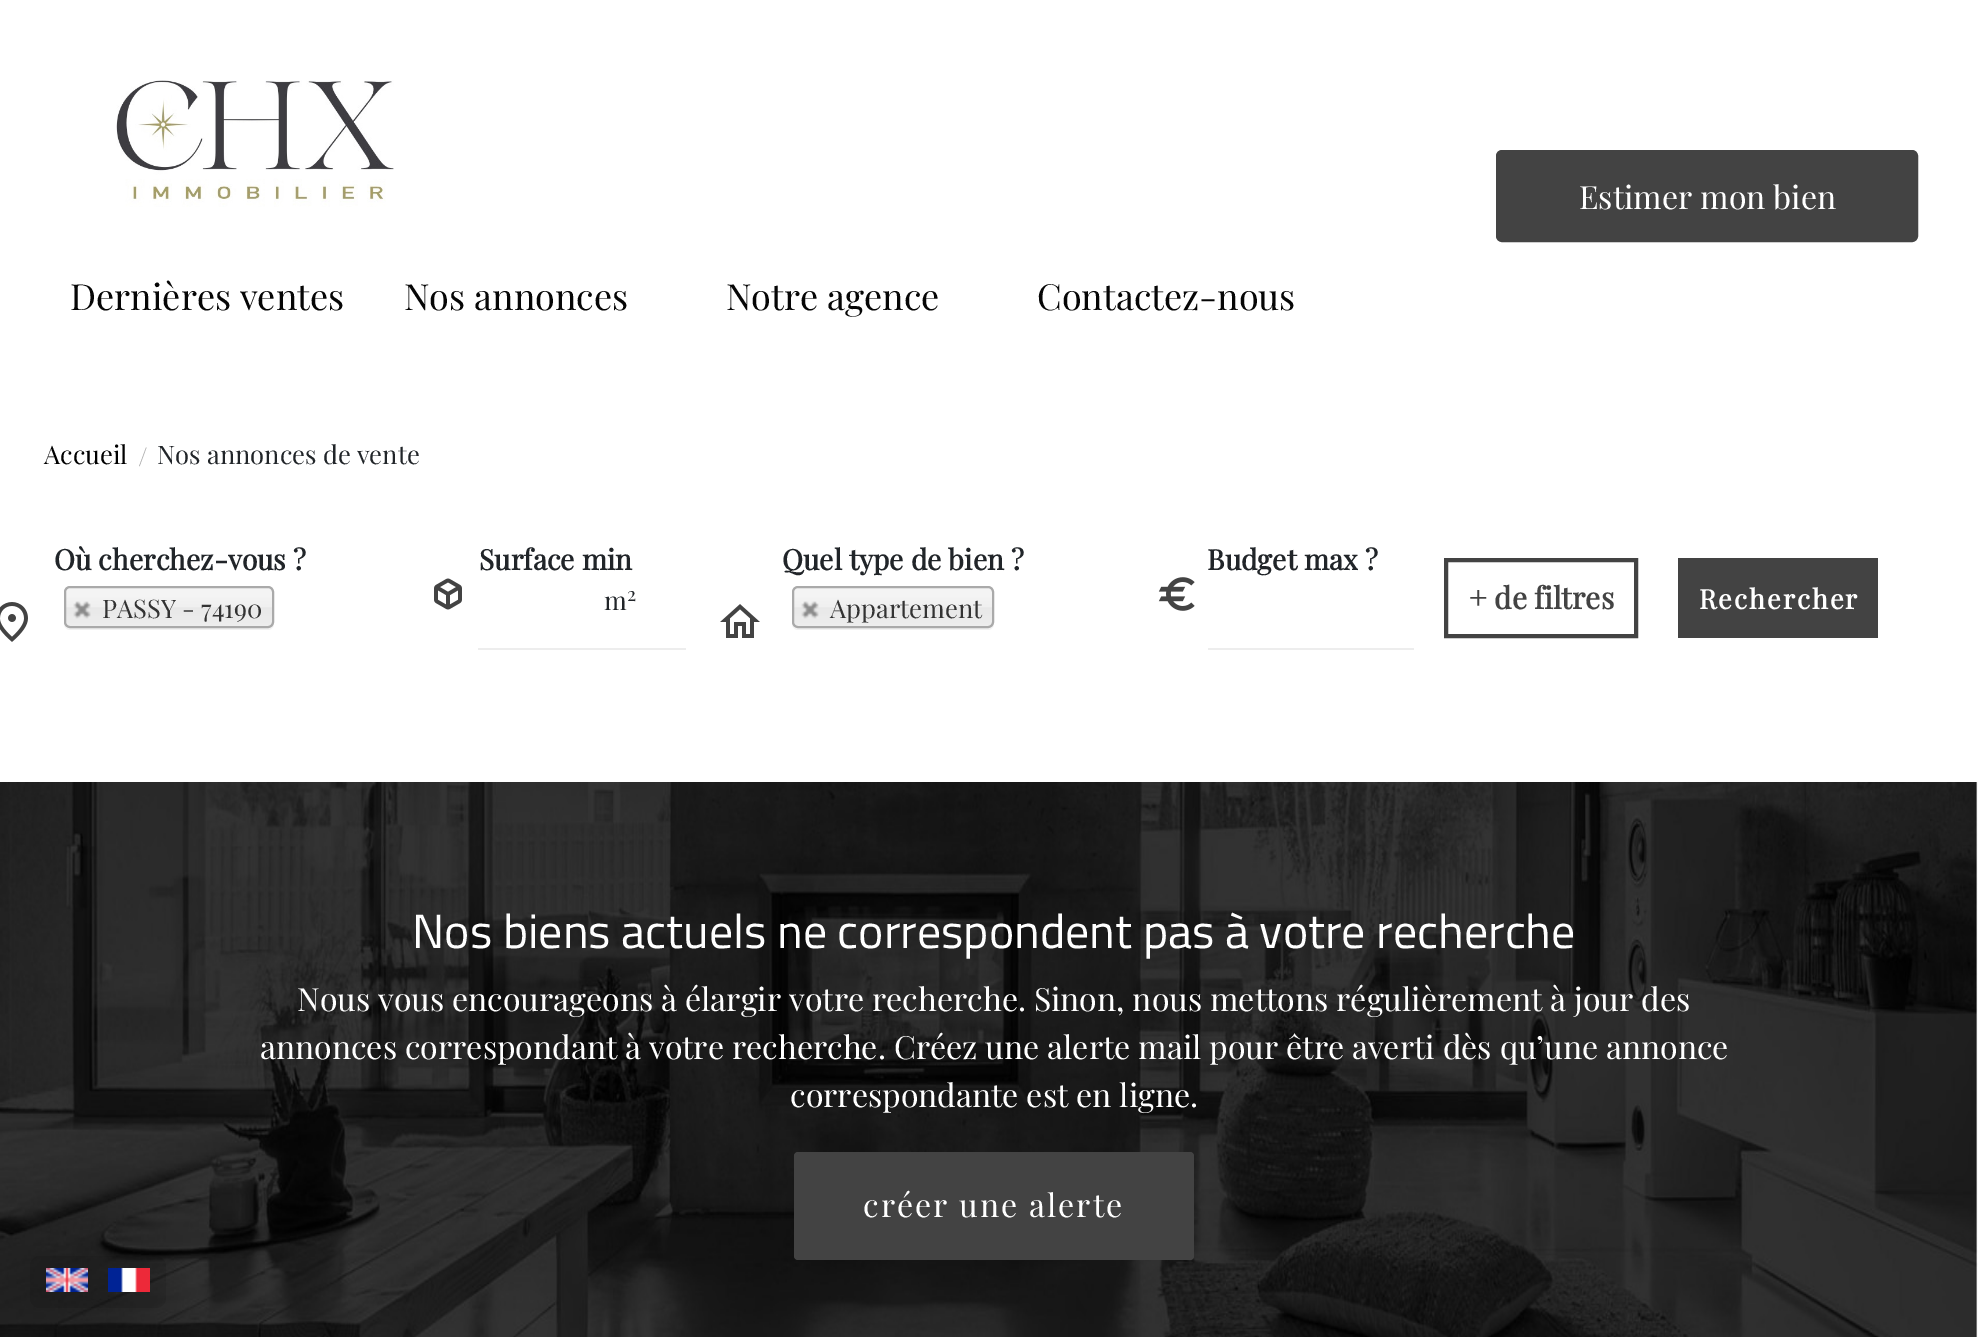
%!PS-Adobe-3.0
%%BoundingBox: 0 0 1988 1337
%%LanguageLevel: 3
%%Pages: 1
%%EndComments
%%BeginProlog
/setalpha { dup .setfillconstantalpha .setstrokeconstantalpha } def
/rrect { 5 dict begin { /r /h /w /y /x } { exch def } forall
  x r add y moveto x w add y 2 copy h add r arct x w add y h add x 1 index r arct
  x y h add x y r arct x y 2 copy exch w add exch r arct closepath end } def
/drawimage { 5 dict begin { /h /w /y /x /name } { exch def } forall
  gsave x y translate w h scale
  w h 8 [w 0 0 h 0 0] name (r) file false 3 colorimage grestore end } def
%%EndProlog
%%BeginSetup
<< /PageSize [1988 1337] /PageUsesTransparency true >> setpagedevice
%%EndSetup
%%Page: 1 1
0 .pushpdf14devicefilter
0 1337 translate 1 -1 scale
4 setmiterlimit
1 setgray
0 0 1988 1337 rectfill
0.263 setgray
1497 151 420 90 5 rrect gsave fill grestore
2 setlinewidth
stroke
(images/1.raw) 116 80 278 127 drawimage
(images/2.raw) 0 602 28 40 drawimage
0.949 setgray
newpath 64 622 moveto 64 624 lineto 64 627 67 630 70 630 curveto 268 630 lineto 271 630 274 627 274 624 curveto 274 622 lineto 274 625 271 628 268 628 curveto 70 628 lineto 67 628 64 625 64 622 curveto closepath fill
gsave 66 588 206 38 4 rrect clip newpath
<< /ShadingType 2 /ColorSpace /DeviceRGB /Coords [169 588 169 626] /Extend [true true] /Function << /FunctionType 3 /Domain [0 1] /Functions [<< /FunctionType 2 /Domain [0 1] /C0 [0.957 0.957 0.957] /C1 [0.957 0.957 0.957] /N 1 >> << /FunctionType 2 /Domain [0 1] /C0 [0.957 0.957 0.957] /C1 [0.941 0.941 0.941] /N 1 >> << /FunctionType 2 /Domain [0 1] /C0 [0.941 0.941 0.941] /C1 [0.91 0.91 0.91] /N 1 >> << /FunctionType 2 /Domain [0 1] /C0 [0.91 0.91 0.91] /C1 [0.933 0.933 0.933] /N 1 >>] /Bounds [0.2 0.5 0.52] /Encode [0 1 0 1 0 1 0 1] >> >> shfill grestore
0.667 setgray
65 587 208 40 5 rrect stroke
(images/3.raw) 73 601 18 18 drawimage
(images/4.raw) 434 578 28 32 drawimage
0.929 setgray
478 648 208 2 rectfill
(images/5.raw) 720 604 40 34 drawimage
0.949 setgray
newpath 792 622 moveto 792 624 lineto 792 627 795 630 798 630 curveto 988 630 lineto 991 630 994 627 994 624 curveto 994 622 lineto 994 625 991 628 988 628 curveto 798 628 lineto 795 628 792 625 792 622 curveto closepath fill
gsave 794 588 198 38 4 rrect clip newpath
<< /ShadingType 2 /ColorSpace /DeviceRGB /Coords [893 588 893 626] /Extend [true true] /Function << /FunctionType 3 /Domain [0 1] /Functions [<< /FunctionType 2 /Domain [0 1] /C0 [0.957 0.957 0.957] /C1 [0.957 0.957 0.957] /N 1 >> << /FunctionType 2 /Domain [0 1] /C0 [0.957 0.957 0.957] /C1 [0.941 0.941 0.941] /N 1 >> << /FunctionType 2 /Domain [0 1] /C0 [0.941 0.941 0.941] /C1 [0.91 0.91 0.91] /N 1 >> << /FunctionType 2 /Domain [0 1] /C0 [0.91 0.91 0.91] /C1 [0.933 0.933 0.933] /N 1 >>] /Bounds [0.2 0.5 0.52] /Encode [0 1 0 1 0 1 0 1] >> >> shfill grestore
0.667 setgray
793 587 200 40 5 rrect stroke
(images/3.raw) 801 601 18 18 drawimage
0.929 setgray
1208 648 206 2 rectfill
(images/6.raw) 1158 577 37 34 drawimage
0.263 setgray
4 setlinewidth
1446 560 190 76 rectstroke
1678 558 200 80 rectfill
(images/7.raw) 0 782 1978 555 drawimage
794 1152 400 108 4 rrect fill
0.1 setalpha
0 setgray
30 1256 136 52 10 rrect fill
1 setalpha
(images/8.raw) 46 1268 42 24 drawimage
(images/9.raw) 108 1268 42 24 drawimage
/PlayfairDisplay-Regular [32 0 0 -32 0 0] selectfont
1 setgray
1579 209 moveto (Estimer mon bien) show
/PlayfairDisplay-Regular [36 0 0 -36 0 0] selectfont
0.024 setgray
70 310 moveto (Dernières ventes) show
404 310 moveto (Nos annonces) show
726 310 moveto (Notre agence) show
1037 310 moveto (Contactez-nous) show
/PlayfairDisplay-Regular [25.6 0 0 -25.6 0 0] selectfont
0 setgray
44 464 moveto (Accueil) show
0.667 setgray
138 466 moveto (/) show
0.129 0.145 0.161 setrgbcolor
157 464 moveto (Nos annonces de vente) show
/PlayfairDisplay-Bold [28.25 0 0 -28.25 0 0] selectfont
54 570 moveto (Où cherchez-vous ?) show
/PlayfairDisplay-Regular [25.6 0 0 -25.6 0 0] selectfont
0.2 setgray
102 618 moveto (PASSY - 74190) show
/PlayfairDisplay-Bold [28.25 0 0 -28.25 0 0] selectfont
0.129 0.145 0.161 setrgbcolor
479 570 moveto (Surface min) show
/PlayfairDisplay-Regular [25.6 0 0 -25.6 0 0] selectfont
604 610 moveto (m) show
/PlayfairDisplay-Regular [19 0 0 -19 0 0] selectfont
627 601 moveto (2) show
/PlayfairDisplay-Bold [28.25 0 0 -28.25 0 0] selectfont
782 570 moveto (Quel type de bien ?) show
/PlayfairDisplay-Regular [25.6 0 0 -25.6 0 0] selectfont
0.2 setgray
830 618 moveto (Appartement) show
/PlayfairDisplay-Bold [28.25 0 0 -28.25 0 0] selectfont
0.129 0.145 0.161 setrgbcolor
1207 570 moveto (Budget max ?) show
/PlayfairDisplay-Bold [30 0 0 -30 0 0] selectfont
0.263 setgray
1469 609 moveto (+ de filtres) show
/PlayfairDisplay-Bold [27 0 0 -27 0 0] selectfont
1 setgray
1699 609 moveto 2 0 (Rechercher) ashow
/TitilliumWeb-Regular [48 0 0 -48 0 0] selectfont
412 948 moveto (Nos biens actuels ne correspondent pas à votre recherche) show
/PlayfairDisplay-Regular [32 0 0 -32 0 0] selectfont
297 1011 moveto (Nous vous encourageons à élargir votre recherche. Sinon, nous mettons régulièrement à jour des) show
260 1059 moveto (annonces correspondant à votre recherche. Créez une alerte mail pour être averti dès qu’une annonce) show
790 1107 moveto (correspondante est en ligne.) show
863 1217 moveto 2 0 (créer une alerte) ashow
.poppdf14devicefilter showpage
%%EOF
